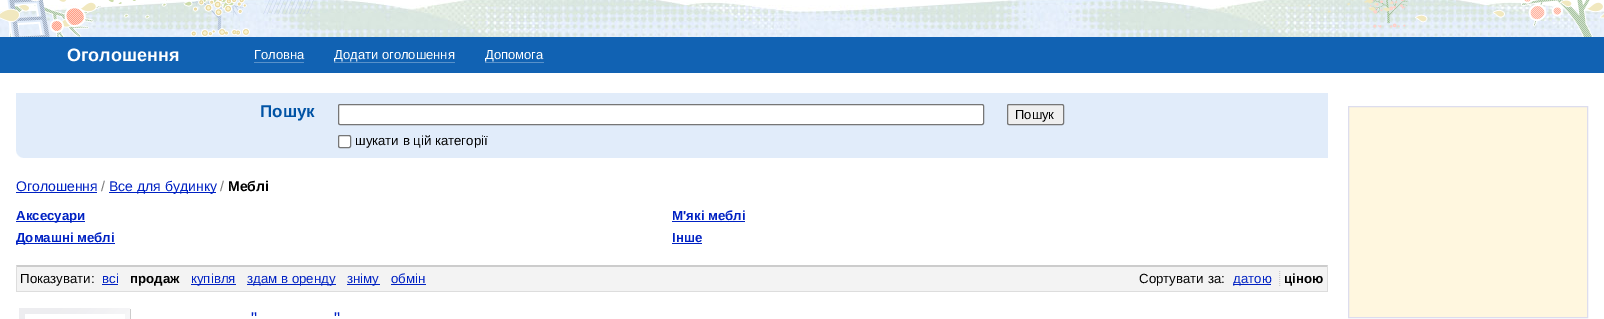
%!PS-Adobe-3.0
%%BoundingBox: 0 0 1604 319
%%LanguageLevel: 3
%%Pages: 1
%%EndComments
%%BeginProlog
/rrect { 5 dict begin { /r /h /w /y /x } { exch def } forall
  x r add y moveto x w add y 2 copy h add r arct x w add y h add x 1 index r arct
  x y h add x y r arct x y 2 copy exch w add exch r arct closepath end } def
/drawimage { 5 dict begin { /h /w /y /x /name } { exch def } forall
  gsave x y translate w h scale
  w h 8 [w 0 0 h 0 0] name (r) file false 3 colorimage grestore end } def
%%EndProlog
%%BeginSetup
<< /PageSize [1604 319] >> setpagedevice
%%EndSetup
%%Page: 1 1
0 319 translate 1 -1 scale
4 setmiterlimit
1 setgray
0 0 1604 319 rectfill
(images/1.raw) 0 0 1604 37 drawimage
0.067 0.384 0.702 setrgbcolor
0 37 1604 36 rectfill
0.345 0.569 0.792 setrgbcolor
254 62 50 1 rectfill
334 62 121 1 rectfill
485 62 59 1 rectfill
0.882 0.925 0.98 setrgbcolor
16 93 1312 65 rectfill
(images/2.raw) 16 151 7 7 drawimage
0.937 setgray
1007.5 104.5 56 20 1.5 rrect gsave fill grestore
0.463 setgray
stroke
1 setgray
338.5 104.5 645 20 1.5 rrect gsave fill grestore
0.463 setgray
stroke
1 setgray
338.5 135.5 12 12 1.5 rrect gsave fill grestore
0.463 setgray
stroke
0 0.129 0.765 setrgbcolor
16 192 81 1 rectfill
109 192 107 1 rectfill
16 221 69 1 rectfill
16 243 99 1 rectfill
672 221 73 1 rectfill
672 243 30 1 rectfill
0.953 setgray
17 267 1310 24 rectfill
0.8 setgray
newpath 16 265 moveto 1328 265 lineto 1327 267 lineto 17 267 lineto closepath fill
0.867 setgray
newpath 1328 265 moveto 1328 292 lineto 1327 291 lineto 1327 267 lineto closepath fill
16 291 1312 1 rectfill
newpath 16 292 moveto 16 265 lineto 17 267 lineto 17 291 lineto closepath fill
0 0.129 0.765 setrgbcolor
102 284 16 1 rectfill
191 284 45 1 rectfill
247 284 89 1 rectfill
347 284 33 1 rectfill
391 284 35 1 rectfill
1233 284 38 1 rectfill
0.8 setgray
[1 1] 0 setdash
newpath 1279.5 271 moveto 1279.5 286 lineto stroke
(images/3.raw) 19 308 112 11 drawimage
1 setgray
25 314 100 5 rectfill
1 0.969 0.875 setrgbcolor
newpath 1348.5 106.5 moveto 1587.5 106.5 lineto 1587.5 317.5 lineto 1348.5 317.5 lineto closepath gsave fill grestore
0.867 0.867 0.933 setrgbcolor
[] 0 setdash
stroke
/LiberationSans-Bold [18 0 0 -18 0 0] selectfont
1 setgray
67 61 moveto (Оголошення) show
/LiberationSans-Regular [13 0 0 -13 0 0] selectfont
254 59 moveto (Головна) show
334 59 moveto (Додати оголошення) show
485 59 moveto (Допомога) show
/LiberationSans-Bold [17 0 0 -17 0 0] selectfont
0 0.325 0.647 setrgbcolor
260 117 moveto (Пошук) show
/LiberationSans-Regular [13 0 0 -13 0 0] selectfont
0 setgray
1015 119 moveto (Пошук) show
/LiberationSans-Regular [13.25 0 0 -13.25 0 0] selectfont
355 145 moveto (шукати в цій категорії) show
/LiberationSans-Regular [14 0 0 -14 0 0] selectfont
0 0.129 0.765 setrgbcolor
16 191 moveto (Оголошення) show
0.467 setgray
101 191 moveto (/) show
0 0.129 0.765 setrgbcolor
109 191 moveto (Все для будинку) show
0.467 setgray
220 191 moveto (/) show
/LiberationSans-Bold [14 0 0 -14 0 0] selectfont
0 setgray
228 191 moveto (Меблі) show
/LiberationSans-Bold [13.25 0 0 -13.25 0 0] selectfont
0 0.129 0.765 setrgbcolor
16 220 moveto (Аксесуари) show
16 242 moveto (Домашні меблі) show
672 220 moveto (М'які меблі) show
672 242 moveto (Інше) show
/LiberationSans-Regular [13.25 0 0 -13.25 0 0] selectfont
0 setgray
20 283 moveto (Показувати:) show
0 0.129 0.765 setrgbcolor
102 283 moveto (всі) show
/LiberationSans-Bold [13.25 0 0 -13.25 0 0] selectfont
0 setgray
130 283 moveto (продаж) show
/LiberationSans-Regular [13.25 0 0 -13.25 0 0] selectfont
0 0.129 0.765 setrgbcolor
191 283 moveto (купівля) show
247 283 moveto (здам в оренду) show
347 283 moveto (зніму) show
391 283 moveto (обмін) show
0 setgray
1139 283 moveto (Сортувати за:) show
0 0.129 0.765 setrgbcolor
1233 283 moveto (датою) show
/LiberationSans-Bold [13.25 0 0 -13.25 0 0] selectfont
0 setgray
1284 283 moveto (ціною) show
/LiberationSans-Regular [17 0 0 -17 0 0] selectfont
0 0.129 0.765 setrgbcolor
251 324 moveto (") show
334 324 moveto (") show
showpage
%%EOF
